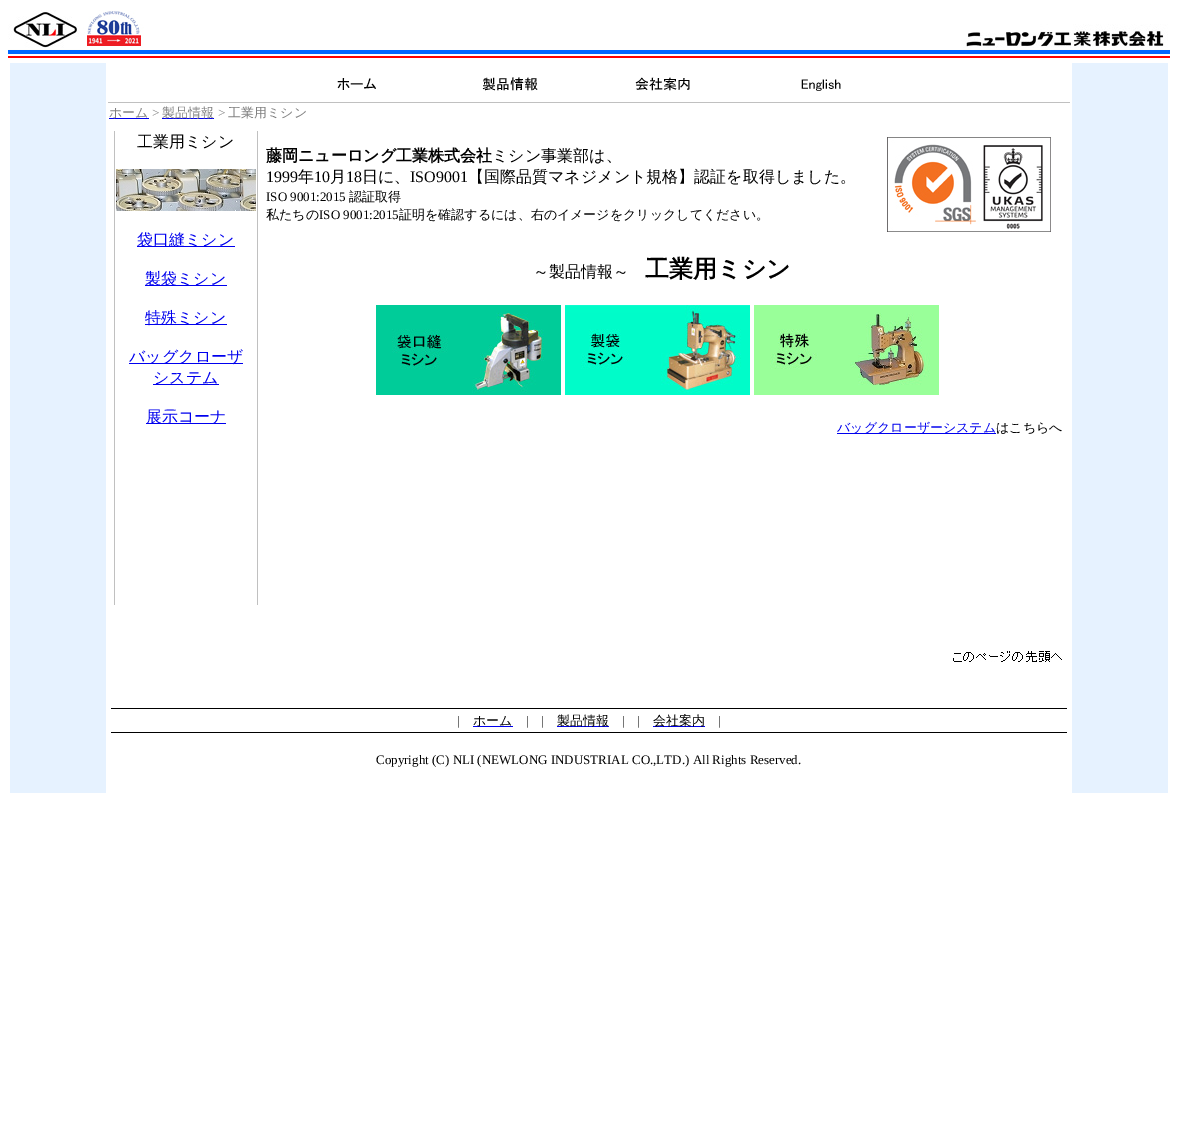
%!PS-Adobe-3.0
%%BoundingBox: 0 0 1178 1126
%%LanguageLevel: 3
%%Pages: 1
%%EndComments
%%BeginProlog
/drawimage { 5 dict begin { /h /w /y /x /name } { exch def } forall
  gsave x y translate w h scale
  w h 8 [w 0 0 h 0 0] name (r) file false 3 colorimage grestore end } def
%%EndProlog
%%BeginSetup
<< /PageSize [1178 1126] >> setpagedevice
%%EndSetup
%%Page: 1 1
0 1126 translate 1 -1 scale
4 setmiterlimit
1 setgray
0 0 1178 1126 rectfill
(images/1.raw) 8 10 139 48 drawimage
(images/2.raw) 147 50 813 8 drawimage
(images/3.raw) 960 24 210 34 drawimage
0.902 0.949 1 setrgbcolor
10 63 96 730 rectfill
1072 63 96 730 rectfill
(images/4.raw) 337 78 39 12 drawimage
(images/5.raw) 482 77 56 14 drawimage
(images/6.raw) 635 77 55 14 drawimage
(images/7.raw) 801 79 40 12 drawimage
0.753 setgray
108 102 962 1 rectfill
0 0 0.933 setrgbcolor
109 118 40 1 rectfill
162 118 52 1 rectfill
0.753 setgray
257 131 1 474 rectfill
114 131 1 474 rectfill
(images/8.raw) 116 169 140 42 drawimage
0 0 0.933 setrgbcolor
137 246 98 1 rectfill
145 285 82 1 rectfill
145 324 82 1 rectfill
129 363 114 1 rectfill
153 384 66 1 rectfill
146 423 80 1 rectfill
(images/9.raw) 887 137 164 95 drawimage
(images/10.raw) 376 305 185 90 drawimage
(images/11.raw) 565 305 185 90 drawimage
(images/12.raw) 754 305 185 90 drawimage
837 433 159 1 rectfill
(images/13.raw) 953 651 109 11 drawimage
0 setgray
111 708 956 1 rectfill
111 732 956 1 rectfill
0 0 0.933 setrgbcolor
473 726 40 1 rectfill
557 726 52 1 rectfill
653 726 52 1 rectfill
/WenQuanYiZenHei-Medium [13 0 0 -13 0 0] selectfont
0.502 setgray
109 117 moveto (ホーム) show
/LiberationSerif-Regular [13 0 0 -13 0 0] selectfont
152 117 moveto (>) show
/WenQuanYiZenHei-Medium [13 0 0 -13 0 0] selectfont
162 117 moveto (製品情報) show
/LiberationSerif-Regular [13 0 0 -13 0 0] selectfont
218 117 moveto (>) show
/WenQuanYiZenHei-Medium [13 0 0 -13 0 0] selectfont
228 117 moveto (工業用ミシン) show
/WenQuanYiZenHei-Medium [16 0 0 -16 0 0] selectfont
0 setgray
137 147 moveto (工業用ミシン) show
0 0 0.933 setrgbcolor
137 245 moveto (袋口縫ミシン) show
145 284 moveto (製袋ミシン) show
145 323 moveto (特殊ミシン) show
129 362 moveto (バッグクローザ) show
153 383 moveto (システム) show
146 422 moveto (展示コーナ) show
/WenQuanYiZenHei-Bold [16 0 0 -16 0 0] selectfont
0 setgray
266 161 moveto (藤岡ニューロング工業株式会社) show
/WenQuanYiZenHei-Medium [16 0 0 -16 0 0] selectfont
492 161 moveto (ミシン事業部は、) show
/LiberationSerif-Regular [16 0 0 -16 0 0] selectfont
266 182 moveto (1999) show
/WenQuanYiZenHei-Medium [16 0 0 -16 0 0] selectfont
298 182 moveto (年) show
/LiberationSerif-Regular [16 0 0 -16 0 0] selectfont
314 182 moveto (10) show
/WenQuanYiZenHei-Medium [16 0 0 -16 0 0] selectfont
330 182 moveto (月) show
/LiberationSerif-Regular [16 0 0 -16 0 0] selectfont
346 182 moveto (18) show
/WenQuanYiZenHei-Medium [16 0 0 -16 0 0] selectfont
362 182 moveto (日に、) show
/LiberationSerif-Regular [16 0 0 -16 0 0] selectfont
410 182 moveto (ISO9001) show
/WenQuanYiZenHei-Medium [16 0 0 -16 0 0] selectfont
468 182 moveto (【国際品質マネジメント規格】認証を取得しました。) show
/LiberationSerif-Regular [13 0 0 -13 0 0] selectfont
266 201 moveto (ISO 9001:2015) show
/WenQuanYiZenHei-Medium [13 0 0 -13 0 0] selectfont
349 201 moveto (認証取得) show
266 219 moveto (私たちの) show
/LiberationSerif-Regular [13 0 0 -13 0 0] selectfont
319 219 moveto (ISO 9001:2015) show
/WenQuanYiZenHei-Medium [13 0 0 -13 0 0] selectfont
399 219 moveto (証明を確認するには、右のイメージをクリックしてください。) show
/WenQuanYiZenHei-Medium [16 0 0 -16 0 0] selectfont
533 277 moveto (～製品情報～) show
/WenQuanYiZenHei-Bold [24 0 0 -24 0 0] selectfont
645 277 moveto (工業用ミシン) show
/WenQuanYiZenHei-Medium [13 0 0 -13 0 0] selectfont
0 0 0.933 setrgbcolor
837 432 moveto (バッグクローザーシステム) show
0 setgray
996 432 moveto (はこちらへ) show
/LiberationSerif-Regular [13 0 0 -13 0 0] selectfont
457 725 moveto (|) show
/WenQuanYiZenHei-Medium [13 0 0 -13 0 0] selectfont
473 725 moveto (ホーム) show
/LiberationSerif-Regular [13 0 0 -13 0 0] selectfont
526 725 moveto (|) show
541 725 moveto (|) show
/WenQuanYiZenHei-Medium [13 0 0 -13 0 0] selectfont
557 725 moveto (製品情報) show
/LiberationSerif-Regular [13 0 0 -13 0 0] selectfont
622 725 moveto (|) show
637 725 moveto (|) show
/WenQuanYiZenHei-Medium [13 0 0 -13 0 0] selectfont
653 725 moveto (会社案内) show
/LiberationSerif-Regular [13 0 0 -13 0 0] selectfont
718 725 moveto (|) show
376 764 moveto (Copyright \(C\) NLI \(NEWLONG INDUSTRIAL CO.,LTD.\) All Rights Reserved.) show
showpage
%%EOF
